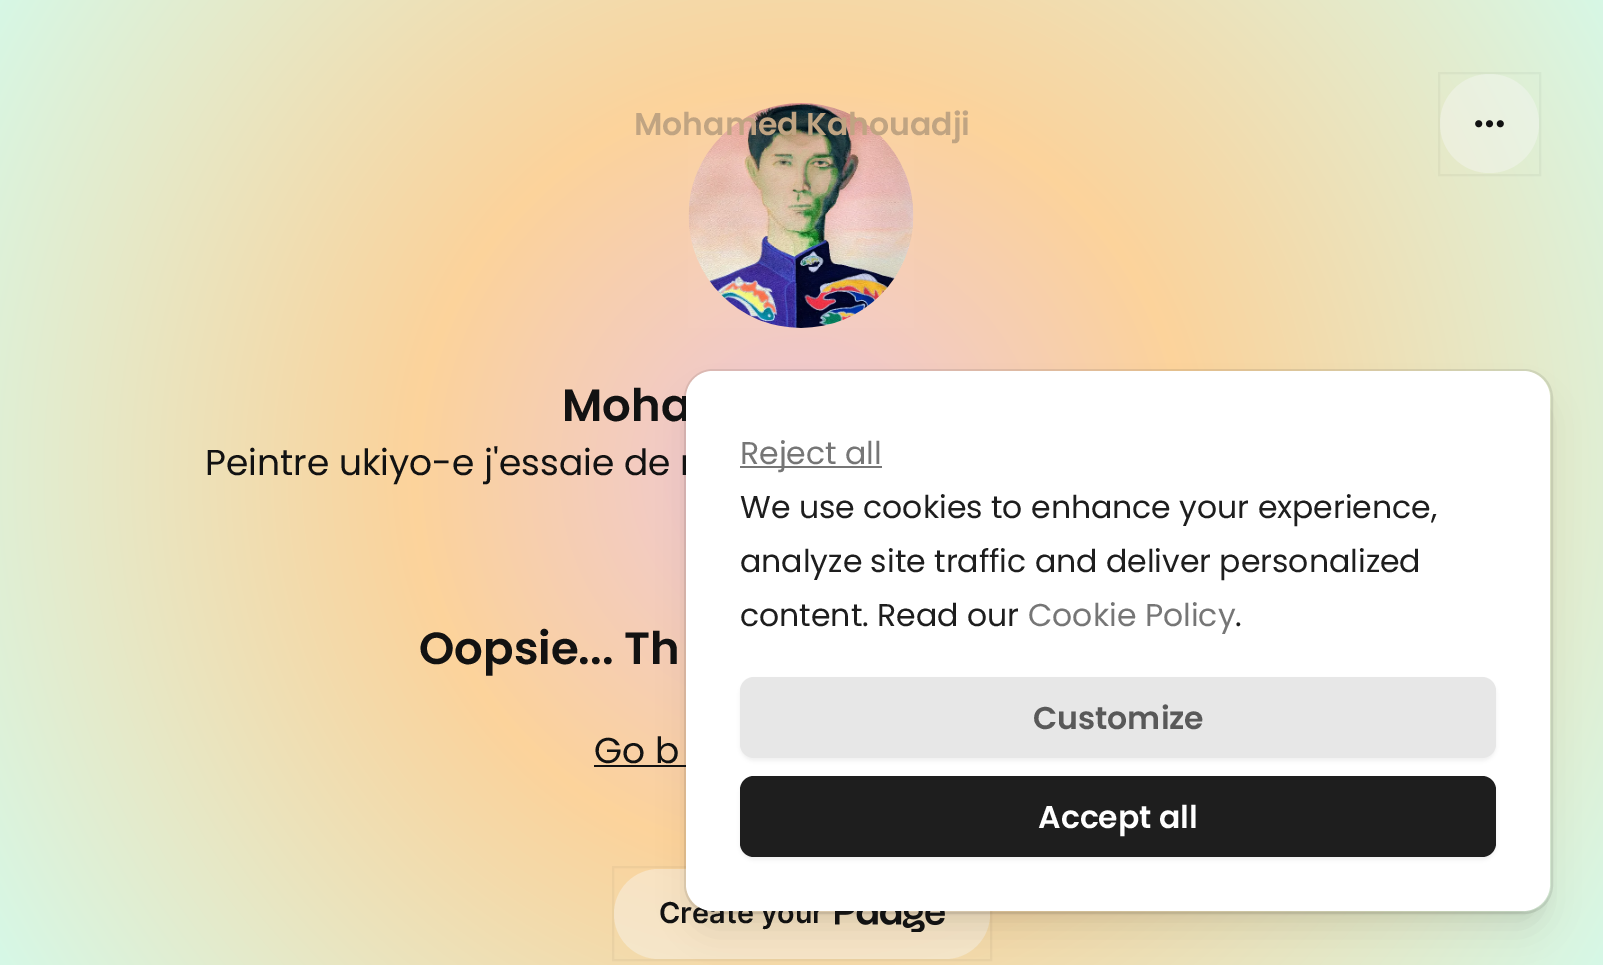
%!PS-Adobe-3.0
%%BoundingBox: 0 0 1603 965
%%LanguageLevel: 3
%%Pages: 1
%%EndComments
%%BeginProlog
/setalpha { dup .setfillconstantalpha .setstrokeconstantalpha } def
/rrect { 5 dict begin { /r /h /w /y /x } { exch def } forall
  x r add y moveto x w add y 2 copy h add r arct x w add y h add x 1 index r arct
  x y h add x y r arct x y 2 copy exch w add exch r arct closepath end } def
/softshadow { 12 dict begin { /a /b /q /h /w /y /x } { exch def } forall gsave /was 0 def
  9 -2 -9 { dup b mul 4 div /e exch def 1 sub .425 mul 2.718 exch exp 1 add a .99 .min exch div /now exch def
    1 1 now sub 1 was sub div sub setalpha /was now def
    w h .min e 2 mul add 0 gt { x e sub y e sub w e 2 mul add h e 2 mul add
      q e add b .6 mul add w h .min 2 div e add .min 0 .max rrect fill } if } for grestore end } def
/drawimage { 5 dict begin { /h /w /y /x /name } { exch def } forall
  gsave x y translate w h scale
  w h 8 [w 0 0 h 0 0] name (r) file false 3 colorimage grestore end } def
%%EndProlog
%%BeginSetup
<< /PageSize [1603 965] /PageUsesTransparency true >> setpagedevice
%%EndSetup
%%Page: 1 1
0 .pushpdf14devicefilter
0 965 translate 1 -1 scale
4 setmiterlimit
1 setgray
0 0 1603 965 rectfill
gsave newpath 0 0 moveto 1603 0 lineto 1603 965 lineto 0 965 lineto closepath clip newpath 802 473 translate 972 972 scale
<< /ShadingType 3 /ColorSpace /DeviceRGB /Coords [0 0 0 0 0 1] /Extend [true true] /Function << /FunctionType 3 /Domain [0 1] /Functions [<< /FunctionType 2 /Domain [0 1] /C0 [0.929 0.78 0.863] /C1 [0.988 0.827 0.608] /N 1 >> << /FunctionType 2 /Domain [0 1] /C0 [0.988 0.827 0.608] /C1 [0.831 0.98 0.922] /N 1 >>] /Bounds [0.4] /Encode [0 1 0 1] >> >> shfill grestore
0.04 setalpha
0 setgray
2 setlinewidth
1439 73 101 102 rectstroke
0.4 setalpha
0.969 setgray
newpath 1489.5 123.5 49.5 0 360 arc closepath fill
1 setalpha
(images/1.raw) 1475 120 29 8 drawimage
(images/2.raw) 688 103 226 225 drawimage
0.071 setgray
594 765 92 2 rectfill
0.04 setalpha
0 setgray
613 867 378 93 rectstroke
0.4 setalpha
0.969 setgray
614 869 376 90 45 rrect fill
1 setalpha
(images/3.raw) 835 911 110 21 drawimage
0 setgray
695 389 846 522 18 7 0.1 softshadow
693 401 851 526 20 17 0.1 softshadow
/Poppins-SemiBold [31.5 0 0 -31.5 0 0] selectfont
0.753 0.643 0.51 setrgbcolor
634 135 moveto (Mohamed Kahouadji) show
/Poppins-SemiBold [45 0 0 -45 0 0] selectfont
0.071 setgray
562 421 moveto (Moha) show
/Poppins-Regular [36 0 0 -36 0 0] selectfont
205 475 moveto (Peintre ukiyo-e j'essaie de r) show
/Poppins-SemiBold [45 0 0 -45 0 0] selectfont
419 664 moveto (Oopsie... Th) show
/Poppins-Regular [36 0 0 -36 0 0] selectfont
594 763 moveto (Go b) show
/Inter-SemiBold [28.75 0 0 -28.75 0 0] selectfont
659 923 moveto (Create your) show
0.1 setalpha
0.118 setgray
685 370 867 543 28 rrect stroke
1 setalpha
1 setgray
686 371 864 540 27 rrect fill
0.463 setgray
740 466 142 2 rectfill
/Poppins-Regular [31.5 0 0 -31.5 0 0] selectfont
740 464 moveto (Reject all) show
0.118 setgray
740 518 moveto (We use cookies to enhance your experience,) show
740 572 moveto (analyze site traffic and deliver personalized) show
740 626 moveto (content. Read our) show
0.463 setgray
1028 626 moveto (Cookie Policy) show
0.118 setgray
1235 626 moveto (.) show
0 setgray
740 680 756 81 14 2 0.05 softshadow
0.906 setgray
740 677 756 81 14 rrect fill
/Poppins-SemiBold [31.5 0 0 -31.5 0 0] selectfont
0.349 setgray
1033 729 moveto (Customize) show
0 setgray
740 779 756 81 14 2 0.05 softshadow
0.118 setgray
740 776 756 81 14 rrect fill
1 setgray
1038 828 moveto (Accept all) show
.poppdf14devicefilter showpage
%%EOF
